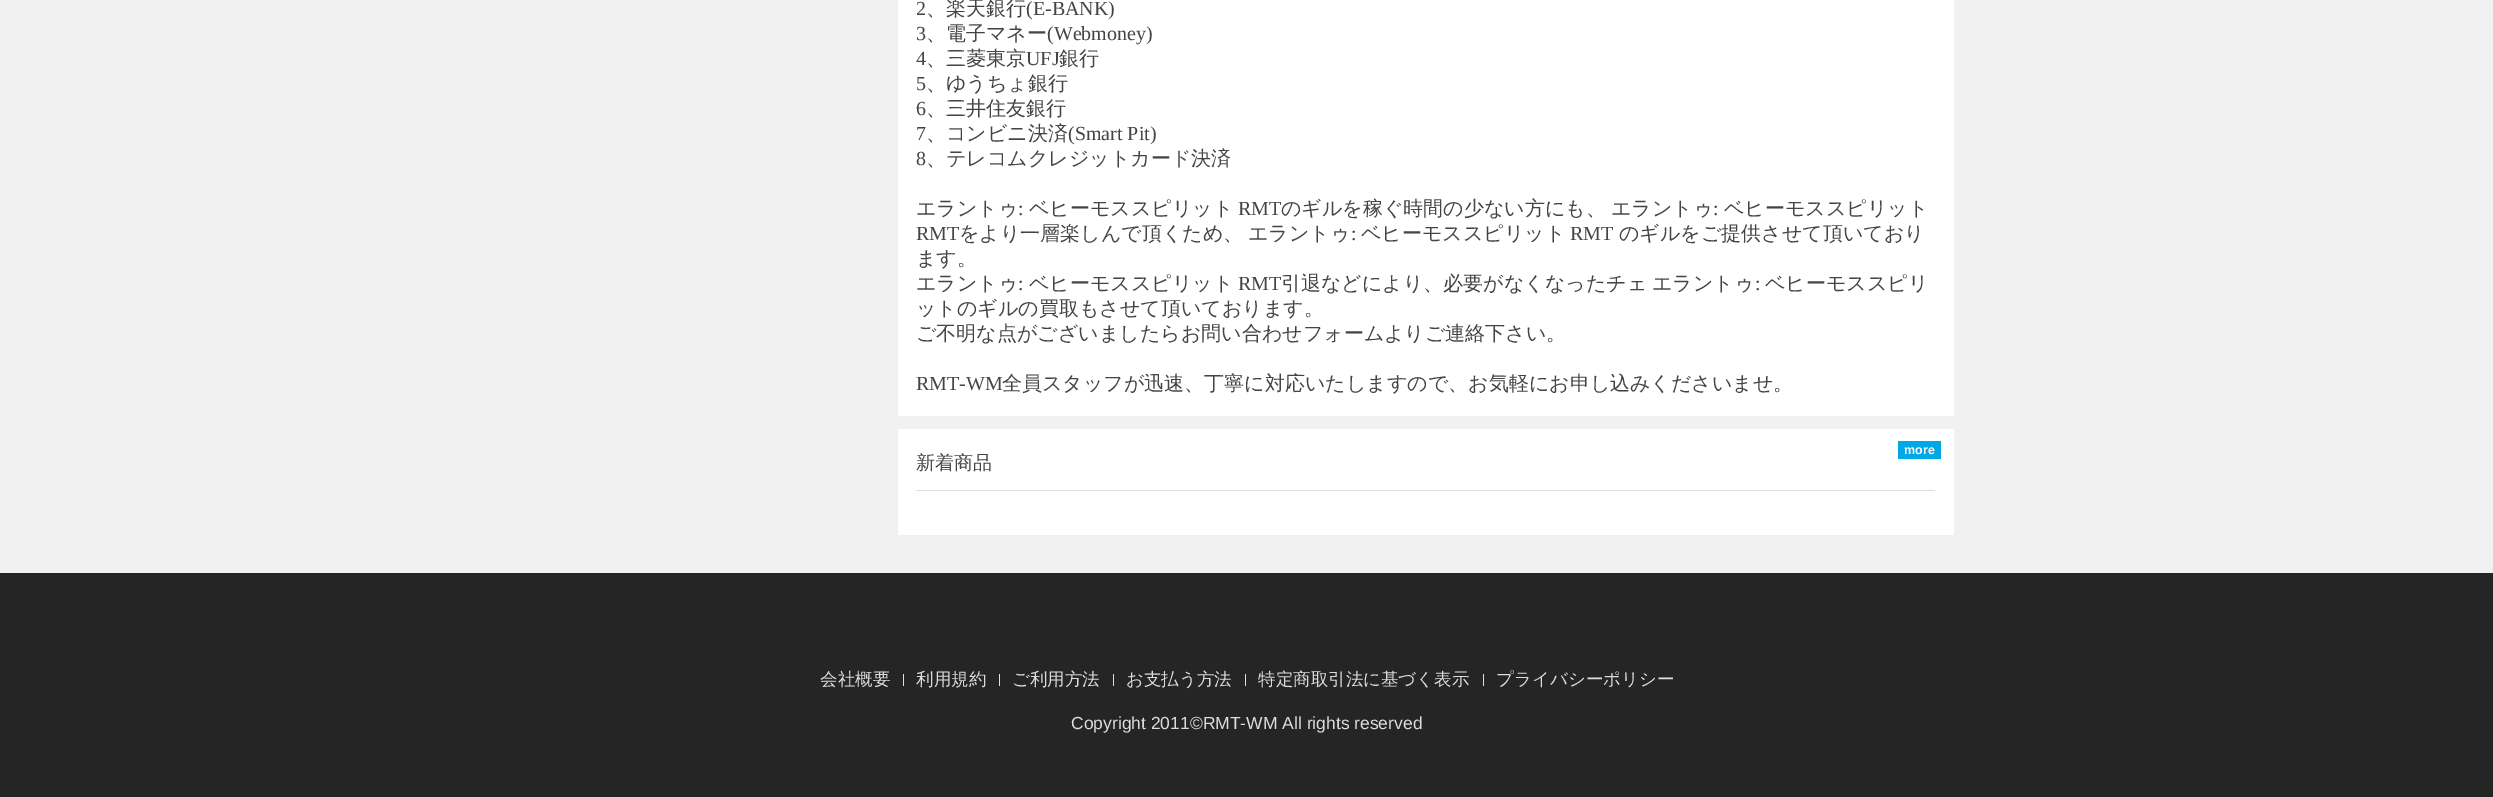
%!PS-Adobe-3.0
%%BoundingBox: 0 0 2493 797
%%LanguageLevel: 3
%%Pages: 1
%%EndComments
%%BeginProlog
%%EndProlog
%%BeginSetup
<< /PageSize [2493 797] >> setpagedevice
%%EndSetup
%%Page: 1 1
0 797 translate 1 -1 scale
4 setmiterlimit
0.945 setgray
0 0 2493 797 rectfill
1 setgray
898 0 1056 416 rectfill
898 429 1056 106 rectfill
0 0.659 0.902 setrgbcolor
1898 441 43 18 rectfill
0.867 setgray
916 490 1019 1 rectfill
0.145 setgray
0 573 2493 224 rectfill
0.867 setgray
903 674 1 12 rectfill
999 674 1 12 rectfill
1113 674 1 12 rectfill
1245 674 1 12 rectfill
1483 674 1 12 rectfill
/LiberationSerif-Regular [20 0 0 -20 0 0] selectfont
0.267 setgray
916 15 moveto (2) show
/WenQuanYiZenHei-Medium [20 0 0 -20 0 0] selectfont
926 15 moveto (、楽天銀行) show
/LiberationSerif-Regular [20 0 0 -20 0 0] selectfont
1026 15 moveto (\(E-BANK\)) show
916 40 moveto (3) show
/WenQuanYiZenHei-Medium [20 0 0 -20 0 0] selectfont
926 40 moveto (、電子マネー) show
/LiberationSerif-Regular [20 0 0 -20 0 0] selectfont
1047 40 moveto (\(Webmoney\)) show
916 65 moveto (4) show
/WenQuanYiZenHei-Medium [20 0 0 -20 0 0] selectfont
926 65 moveto (、三菱東京) show
/LiberationSerif-Regular [20 0 0 -20 0 0] selectfont
1026 65 moveto (UFJ) show
/WenQuanYiZenHei-Medium [20 0 0 -20 0 0] selectfont
1059 65 moveto (銀行) show
/LiberationSerif-Regular [20 0 0 -20 0 0] selectfont
916 90 moveto (5) show
/WenQuanYiZenHei-Medium [20 0 0 -20 0 0] selectfont
926 90 moveto (、ゆうちょ銀行) show
/LiberationSerif-Regular [20 0 0 -20 0 0] selectfont
916 115 moveto (6) show
/WenQuanYiZenHei-Medium [20 0 0 -20 0 0] selectfont
926 115 moveto (、三井住友銀行) show
/LiberationSerif-Regular [20 0 0 -20 0 0] selectfont
916 140 moveto (7) show
/WenQuanYiZenHei-Medium [20 0 0 -20 0 0] selectfont
926 140 moveto (、コンビニ決済) show
/LiberationSerif-Regular [20 0 0 -20 0 0] selectfont
1068 140 moveto (\(Smart Pit\)) show
916 165 moveto (8) show
/WenQuanYiZenHei-Medium [20 0 0 -20 0 0] selectfont
926 165 moveto (、テレコムクレジットカード決済) show
916 215 moveto (エラントゥ) show
/LiberationSerif-Regular [20 0 0 -20 0 0] selectfont
1018 215 moveto (:) show
/WenQuanYiZenHei-Medium [20 0 0 -20 0 0] selectfont
1029 215 moveto (ベヒーモススピリット) show
/LiberationSerif-Regular [20 0 0 -20 0 0] selectfont
1238 215 moveto (RMT) show
/WenQuanYiZenHei-Medium [20 0 0 -20 0 0] selectfont
1281 215 moveto (のギルを稼ぐ時間の少ない方にも、) show
1611 215 moveto (エラントゥ) show
/LiberationSerif-Regular [20 0 0 -20 0 0] selectfont
1713 215 moveto (:) show
/WenQuanYiZenHei-Medium [20 0 0 -20 0 0] selectfont
1724 215 moveto (ベヒーモススピリット) show
/LiberationSerif-Regular [20 0 0 -20 0 0] selectfont
916 240 moveto (RMT) show
/WenQuanYiZenHei-Medium [20 0 0 -20 0 0] selectfont
959 240 moveto (をより一層楽しんで頂くため、) show
1248 240 moveto (エラントゥ) show
/LiberationSerif-Regular [20 0 0 -20 0 0] selectfont
1351 240 moveto (:) show
/WenQuanYiZenHei-Medium [20 0 0 -20 0 0] selectfont
1361 240 moveto (ベヒーモススピリット) show
/LiberationSerif-Regular [20 0 0 -20 0 0] selectfont
1570 240 moveto (RMT) show
/WenQuanYiZenHei-Medium [20 0 0 -20 0 0] selectfont
1619 240 moveto (のギルをご提供させて頂いており) show
916 265 moveto (ます。) show
916 290 moveto (エラントゥ) show
/LiberationSerif-Regular [20 0 0 -20 0 0] selectfont
1018 290 moveto (:) show
/WenQuanYiZenHei-Medium [20 0 0 -20 0 0] selectfont
1029 290 moveto (ベヒーモススピリット) show
/LiberationSerif-Regular [20 0 0 -20 0 0] selectfont
1238 290 moveto (RMT) show
/WenQuanYiZenHei-Medium [20 0 0 -20 0 0] selectfont
1281 290 moveto (引退などにより、必要がなくなったチェ) show
1652 290 moveto (エラントゥ) show
/LiberationSerif-Regular [20 0 0 -20 0 0] selectfont
1755 290 moveto (:) show
/WenQuanYiZenHei-Medium [20 0 0 -20 0 0] selectfont
1765 290 moveto (ベヒーモススピリ) show
916 315 moveto (ットのギルの買取もさせて頂いております。) show
916 340 moveto (ご不明な点がございましたらお問い合わせフォームよりご連絡下さい。) show
/LiberationSerif-Regular [20 0 0 -20 0 0] selectfont
916 390 moveto (RMT-WM) show
/WenQuanYiZenHei-Medium [20 0 0 -20 0 0] selectfont
1002 390 moveto (全員スタッフが迅速、丁寧に対応いたしますので、お気軽にお申し込みくださいませ。) show
/LiberationSans-Bold [12.5 0 0 -12.5 0 0] selectfont
1 setgray
1904 454 moveto (more) show
/WenQuanYiZenHei-Medium [19 0 0 -19 0 0] selectfont
0.267 setgray
916 469 moveto (新着商品) show
/WenQuanYiZenHei-Medium [17.5 0 0 -17.5 0 0] selectfont
0.867 setgray
820 685 moveto (会社概要) show
916 685 moveto (利用規約) show
1012 685 moveto (ご利用方法) show
1126 685 moveto (お支払う方法) show
1258 685 moveto (特定商取引法に基づく表示) show
1496 685 moveto (プライバシーポリシー) show
/LiberationSans-Regular [17.5 0 0 -17.5 0 0] selectfont
1071 729 moveto (Copyright 2011©RMT-WM All rights reserved) show
showpage
%%EOF
